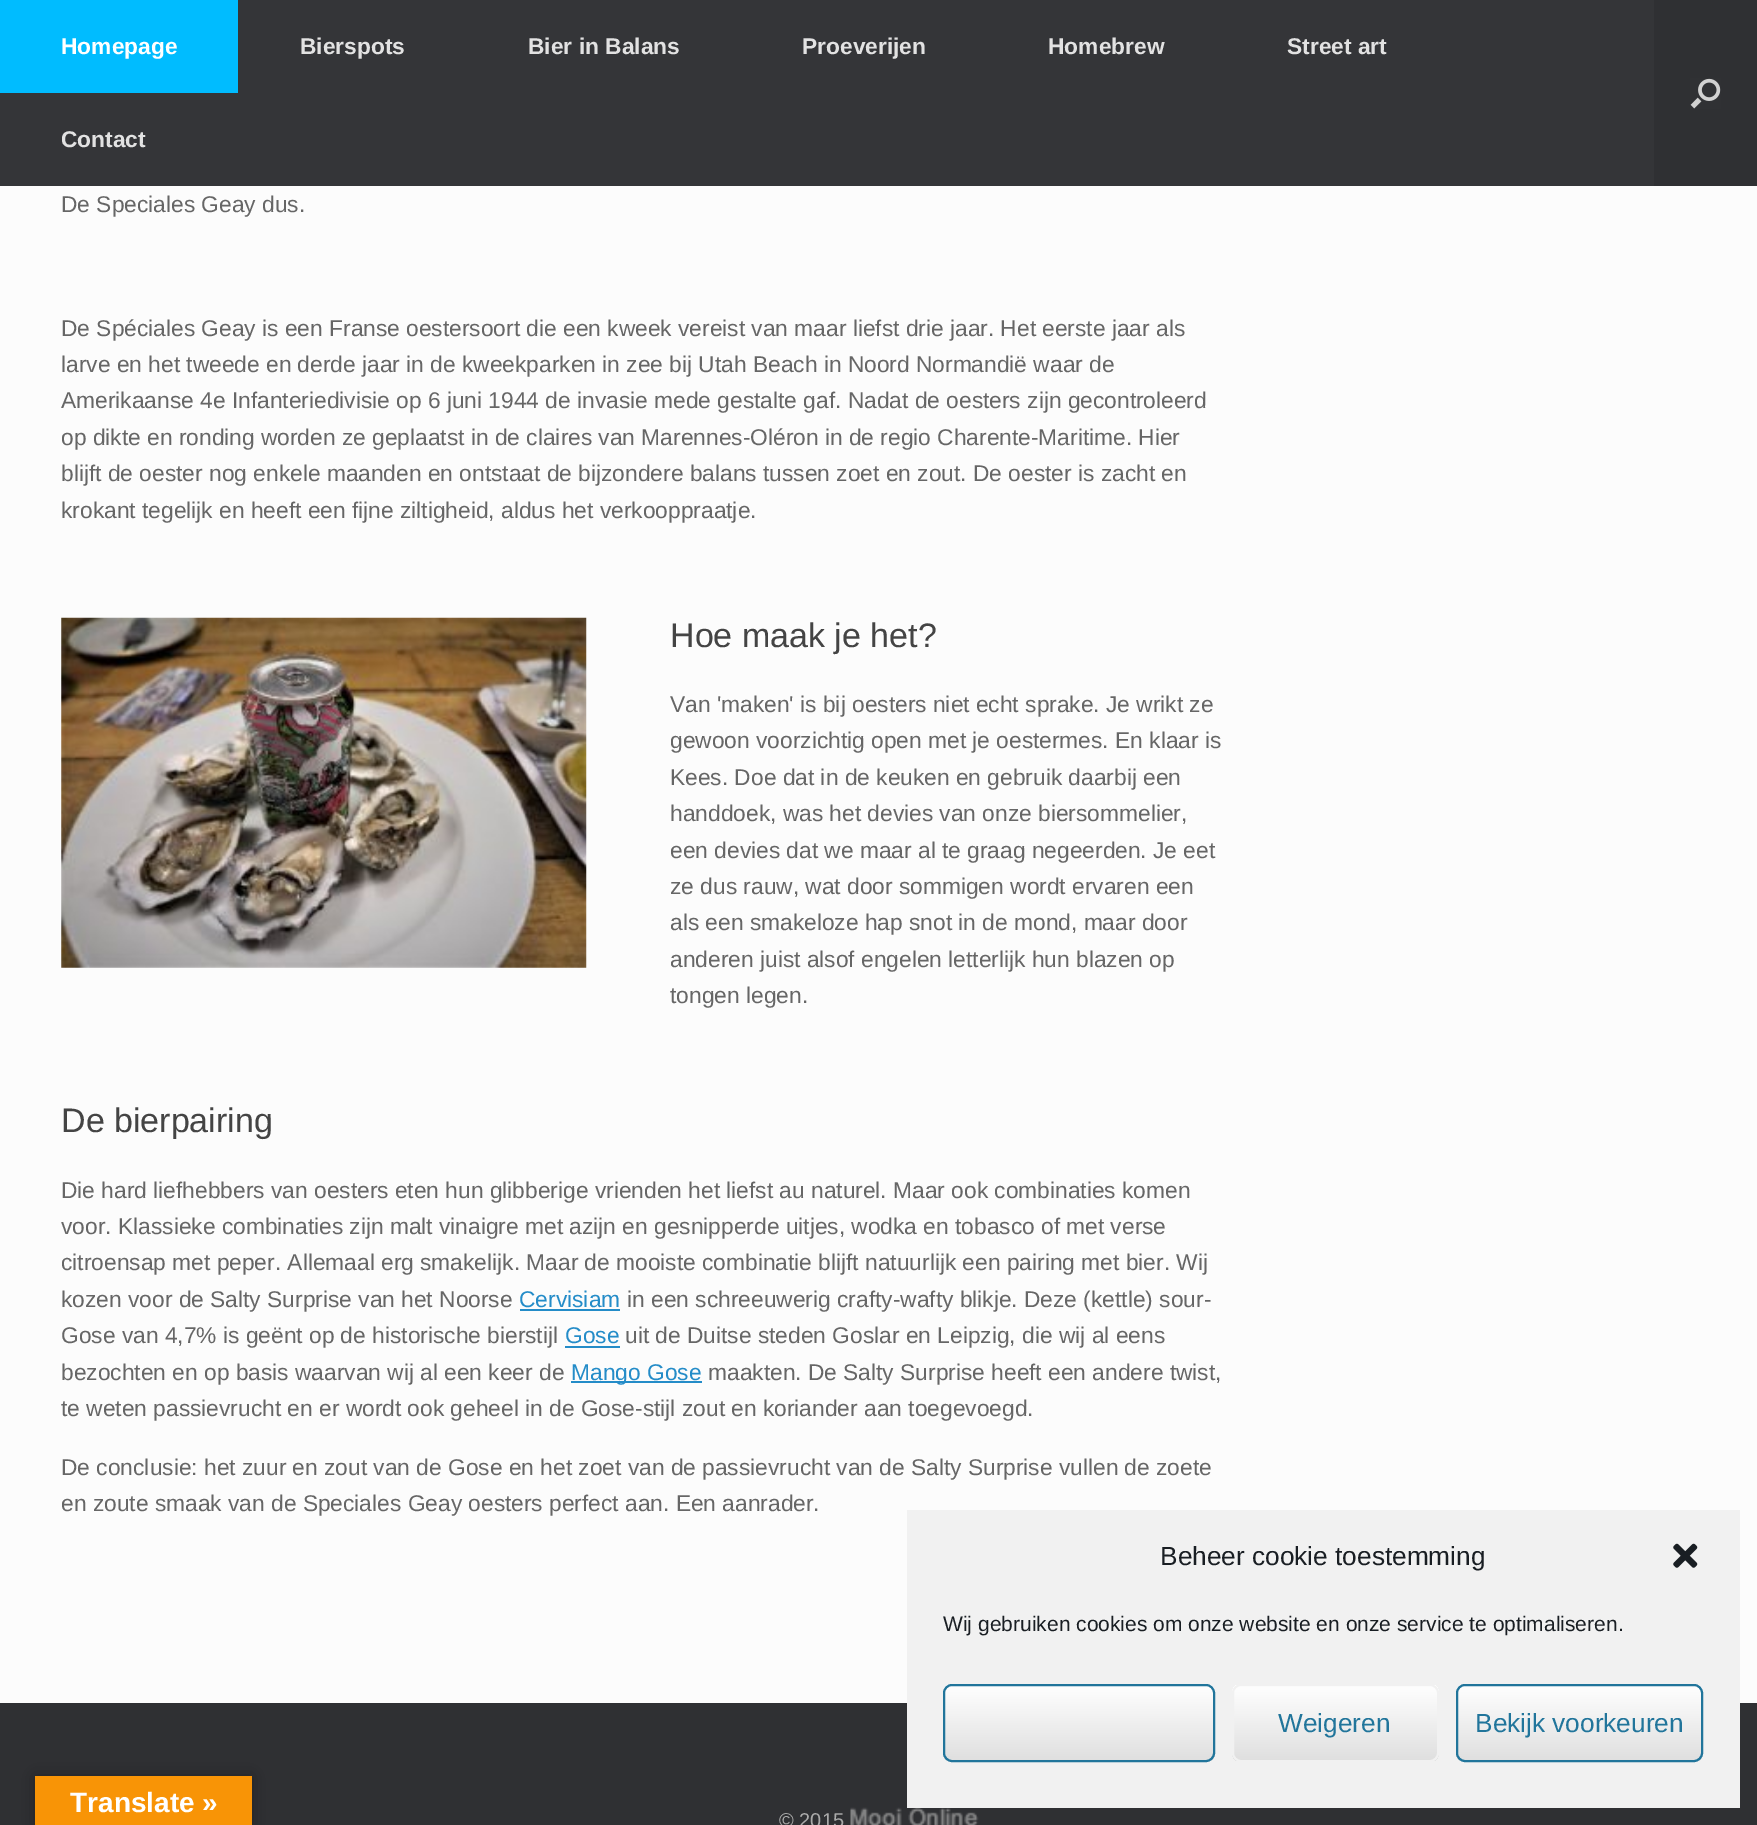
%!PS-Adobe-3.0
%%BoundingBox: 0 0 1757 1825
%%LanguageLevel: 3
%%Pages: 1
%%EndComments
%%BeginProlog
/setalpha { dup .setfillconstantalpha .setstrokeconstantalpha } def
/rrect { 5 dict begin { /r /h /w /y /x } { exch def } forall
  x r add y moveto x w add y 2 copy h add r arct x w add y h add x 1 index r arct
  x y h add x y r arct x y 2 copy exch w add exch r arct closepath end } def
/softshadow { 12 dict begin { /a /b /q /h /w /y /x } { exch def } forall gsave /was 0 def
  9 -2 -9 { dup b mul 4 div /e exch def 1 sub .425 mul 2.718 exch exp 1 add a .99 .min exch div /now exch def
    1 1 now sub 1 was sub div sub setalpha /was now def
    w h .min e 2 mul add 0 gt { x e sub y e sub w e 2 mul add h e 2 mul add
      q e add b .6 mul add w h .min 2 div e add .min 0 .max rrect fill } if } for grestore end } def
/drawimage { 5 dict begin { /h /w /y /x /name } { exch def } forall
  gsave x y translate w h scale
  w h 8 [w 0 0 h 0 0] name (r) file false 3 colorimage grestore end } def
%%EndProlog
%%BeginSetup
<< /PageSize [1757 1825] /PageUsesTransparency true >> setpagedevice
%%EndSetup
%%Page: 1 1
0 .pushpdf14devicefilter
0 1825 translate 1 -1 scale
4 setmiterlimit
0.184 0.188 0.2 setrgbcolor
0 0 1757 1825 rectfill
0.204 0.208 0.22 setrgbcolor
0 0 1654 186 rectfill
0 0.737 1 setrgbcolor
0 0 238 93 rectfill
(images/1.raw) 1690 78 31 31 drawimage
0.988 setgray
0 186 1757 1517 rectfill
(images/2.raw) 61 617 526 351 drawimage
0.141 0.549 0.784 setrgbcolor
520 1309 100 2 rectfill
565 1346 55 2 rectfill
571 1381 131 2 rectfill
(images/3.raw) 850 1807 129 18 drawimage
0.945 setgray
907 1510 833 298 rectfill
(images/4.raw) 1673 1543 25 25 drawimage
gsave
943 1684 272 78 9 rrect clip newpath
gsave newpath 943 1685 moveto 1215 1685 lineto 1215 1761 lineto 943 1761 lineto closepath clip newpath
<< /ShadingType 2 /ColorSpace /DeviceRGB /Coords [945 1761 945 1685] /Extend [true true] /Function << /FunctionType 2 /Domain [0 1] /C0 [0.875 0.875 0.875] /C1 [1 1 1] /N 1 >> >> shfill grestore
grestore
0.129 0.459 0.608 setrgbcolor
2 setlinewidth
944 1685 270 76 8 rrect stroke
gsave
1232 1684 207 78 9 rrect clip newpath
gsave newpath 1232 1685 moveto 1439 1685 lineto 1439 1761 lineto 1232 1761 lineto closepath clip newpath
<< /ShadingType 2 /ColorSpace /DeviceRGB /Coords [1234 1761 1234 1685] /Extend [true true] /Function << /FunctionType 2 /Domain [0 1] /C0 [0.875 0.875 0.875] /C1 [1 1 1] /N 1 >> >> shfill grestore
grestore
0.945 setgray
1233 1685 205 76 8 rrect stroke
gsave
1456 1684 247 78 9 rrect clip newpath
gsave newpath 1456 1685 moveto 1703 1685 lineto 1703 1761 lineto 1456 1761 lineto closepath clip newpath
<< /ShadingType 2 /ColorSpace /DeviceRGB /Coords [1458 1761 1458 1685] /Extend [true true] /Function << /FunctionType 2 /Domain [0 1] /C0 [0.875 0.875 0.875] /C1 [1 1 1] /N 1 >> >> shfill grestore
grestore
0.129 0.459 0.608 setrgbcolor
1457 1685 245 76 8 rrect stroke
0 setgray
35 1776 217 49 0 8 0.3 softshadow
0.973 0.58 0.024 setrgbcolor
35 1776 217 49 rectfill
/LiberationSans-Bold [22.75 0 0 -22.75 0 0] selectfont
1 setgray
61 54 moveto (Homepage) show
0.886 setgray
300 54 moveto (Bierspots) show
528 54 moveto (Bier in Balans) show
802 54 moveto (Proeverijen) show
1048 54 moveto (Homebrew) show
1287 54 moveto (Street art) show
61 147 moveto (Contact) show
/LiberationSans-Regular [22.75 0 0 -22.75 0 0] selectfont
0.4 setgray
61 212 moveto (De Speciales Geay dus.) show
61 336 moveto (De Spéciales Geay is een Franse oestersoort die een kweek vereist van maar liefst drie jaar. Het eerste jaar als) show
61 372 moveto (larve en het tweede en derde jaar in de kweekparken in zee bij Utah Beach in Noord Normandië waar de) show
61 408 moveto (Amerikaanse 4e Infanteriedivisie op 6 juni 1944 de invasie mede gestalte gaf. Nadat de oesters zijn gecontroleerd) show
61 445 moveto (op dikte en ronding worden ze geplaatst in de claires van Marennes-Oléron in de regio Charente-Maritime. Hier) show
61 481 moveto (blijft de oester nog enkele maanden en ontstaat de bijzondere balans tussen zoet en zout. De oester is zacht en) show
61 518 moveto (krokant tegelijk en heeft een fijne ziltigheid, aldus het verkooppraatje.) show
/LiberationSans-Regular [34 0 0 -34 0 0] selectfont
0.267 setgray
670 647 moveto (Hoe maak je het?) show
/LiberationSans-Regular [22.75 0 0 -22.75 0 0] selectfont
0.4 setgray
670 712 moveto (Van 'maken' is bij oesters niet echt sprake. Je wrikt ze) show
670 748 moveto (gewoon voorzichtig open met je oestermes. En klaar is) show
670 785 moveto (Kees. Doe dat in de keuken en gebruik daarbij een) show
670 821 moveto (handdoek, was het devies van onze biersommelier,) show
670 858 moveto (een devies dat we maar al te graag negeerden. Je eet) show
670 894 moveto (ze dus rauw, wat door sommigen wordt ervaren een) show
670 930 moveto (als een smakeloze hap snot in de mond, maar door) show
670 967 moveto (anderen juist alsof engelen letterlijk hun blazen op) show
670 1003 moveto (tongen legen.) show
/LiberationSans-Regular [34 0 0 -34 0 0] selectfont
0.267 setgray
61 1132 moveto (De bierpairing) show
/LiberationSans-Regular [22.75 0 0 -22.75 0 0] selectfont
0.4 setgray
61 1198 moveto (Die hard liefhebbers van oesters eten hun glibberige vrienden het liefst au naturel. Maar ook combinaties komen) show
61 1234 moveto (voor. Klassieke combinaties zijn malt vinaigre met azijn en gesnipperde uitjes, wodka en tobasco of met verse) show
61 1270 moveto (citroensap met peper. Allemaal erg smakelijk. Maar de mooiste combinatie blijft natuurlijk een pairing met bier. Wij) show
61 1307 moveto (kozen voor de Salty Surprise van het Noorse) show
0.141 0.549 0.784 setrgbcolor
519 1307 moveto (Cervisiam) show
0.4 setgray
627 1307 moveto (in een schreeuwerig crafty-wafty blikje. Deze \(kettle\) sour-) show
61 1343 moveto (Gose van 4,7% is geënt op de historische bierstijl) show
0.141 0.549 0.784 setrgbcolor
565 1343 moveto (Gose) show
0.4 setgray
625 1343 moveto (uit de Duitse steden Goslar en Leipzig, die wij al eens) show
61 1380 moveto (bezochten en op basis waarvan wij al een keer de) show
0.141 0.549 0.784 setrgbcolor
571 1380 moveto (Mango Gose) show
0.4 setgray
708 1380 moveto (maakten. De Salty Surprise heeft een andere twist,) show
61 1416 moveto (te weten passievrucht en er wordt ook geheel in de Gose-stijl zout en koriander aan toegevoegd.) show
61 1475 moveto (De conclusie: het zuur en zout van de Gose en het zoet van de passievrucht van de Salty Surprise vullen de zoete) show
61 1511 moveto (en zoute smaak van de Speciales Geay oesters perfect aan. Een aanrader.) show
/LiberationSans-Regular [20 0 0 -20 0 0] selectfont
0.667 setgray
779 1827 moveto (© 2015) show
/LiberationSans-Regular [26.25 0 0 -26.25 0 0] selectfont
0.098 0.118 0.137 setrgbcolor
1160 1565 moveto (Beheer cookie toestemming) show
/LiberationSans-Regular [21 0 0 -21 0 0] selectfont
943 1631 moveto (Wij gebruiken cookies om onze website en onze service te optimaliseren.) show
/LiberationSans-Regular [26.25 0 0 -26.25 0 0] selectfont
0.129 0.459 0.608 setrgbcolor
1278 1732 moveto (Weigeren) show
1475 1732 moveto (Bekijk voorkeuren) show
/LiberationSans-Bold [28 0 0 -28 0 0] selectfont
1 setgray
70 1812 moveto (Translate ») show
.poppdf14devicefilter showpage
%%EOF
